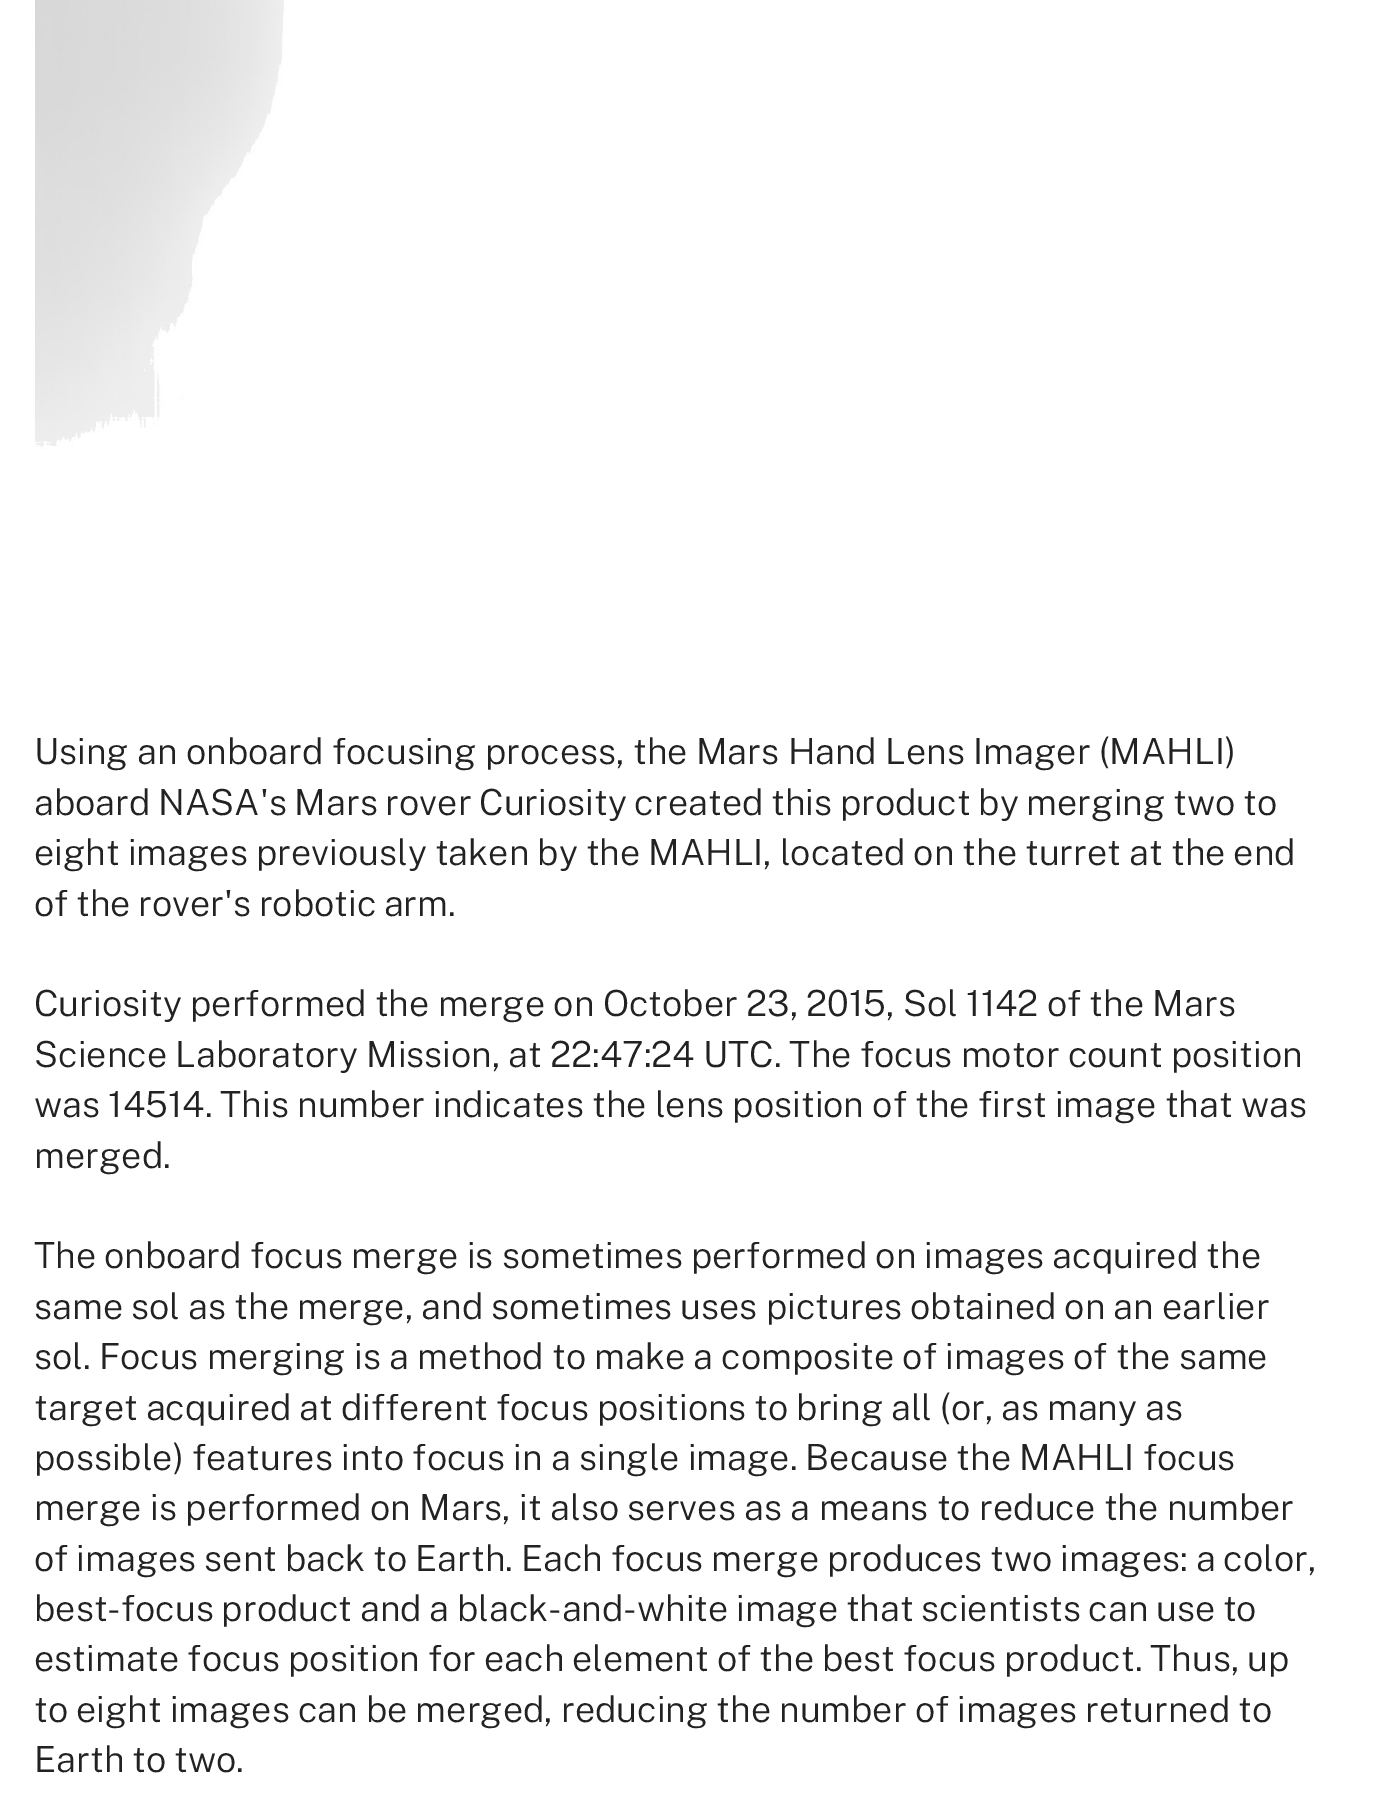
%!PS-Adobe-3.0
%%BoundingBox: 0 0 1395 1810
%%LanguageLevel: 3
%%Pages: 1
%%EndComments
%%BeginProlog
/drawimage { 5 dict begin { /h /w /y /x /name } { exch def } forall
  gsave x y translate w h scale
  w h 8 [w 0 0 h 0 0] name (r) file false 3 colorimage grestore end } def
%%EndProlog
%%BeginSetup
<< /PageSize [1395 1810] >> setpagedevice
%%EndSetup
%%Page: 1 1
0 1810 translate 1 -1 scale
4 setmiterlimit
1 setgray
0 0 1395 1810 rectfill
(images/1.raw) 35 0 249 449 drawimage
/PublicSans-Light [36 0 0 -36 0 0] selectfont
0.133 setgray
34 764 moveto -0.5 0 32 (Using an onboard focusing process, the Mars Hand Lens Imager \(MAHLI\)) widthshow
34 815 moveto -1.25 0 32 (aboard NASA's Mars rover Curiosity created this product by merging two to) widthshow
34 865 moveto -0.9 0 32 (eight images previously taken by the MAHLI, located on the turret at the end) widthshow
34 916 moveto -1.5 0 32 (of the rover's robotic arm.) widthshow
34 1016 moveto -0.6 0 32 (Curiosity performed the merge on October 23, 2015, Sol 1142 of the Mars) widthshow
34 1067 moveto -0.75 0 32 (Science Laboratory Mission, at 22:47:24 UTC. The focus motor count position) widthshow
34 1117 moveto -0.75 0 32 (was 14514. This number indicates the lens position of the first image that was) widthshow
34 1168 moveto (merged.) show
34 1268 moveto -0.75 0 32 (The onboard focus merge is sometimes performed on images acquired the) widthshow
34 1319 moveto -0.75 0 32 (same sol as the merge, and sometimes uses pictures obtained on an earlier) widthshow
34 1369 moveto -0.75 0 32 (sol. Focus merging is a method to make a composite of images of the same) widthshow
34 1420 moveto -1 0 32 (target acquired at different focus positions to bring all \(or, as many as) widthshow
34 1470 moveto -0.75 0 32 (possible\) features into focus in a single image. Because the MAHLI focus) widthshow
34 1520 moveto -0.5 0 32 (merge is performed on Mars, it also serves as a means to reduce the number) widthshow
34 1571 moveto -1.1 0 32 (of images sent back to Earth. Each focus merge produces two images: a color,) widthshow
34 1621 moveto -1.25 0 32 (best-focus product and a black-and-white image that scientists can use to) widthshow
34 1671 moveto -1 0 32 (estimate focus position for each element of the best focus product. Thus, up) widthshow
34 1722 moveto -0.9 0 32 (to eight images can be merged, reducing the number of images returned to) widthshow
34 1772 moveto -1 0 32 (Earth to two.) widthshow
showpage
%%EOF
